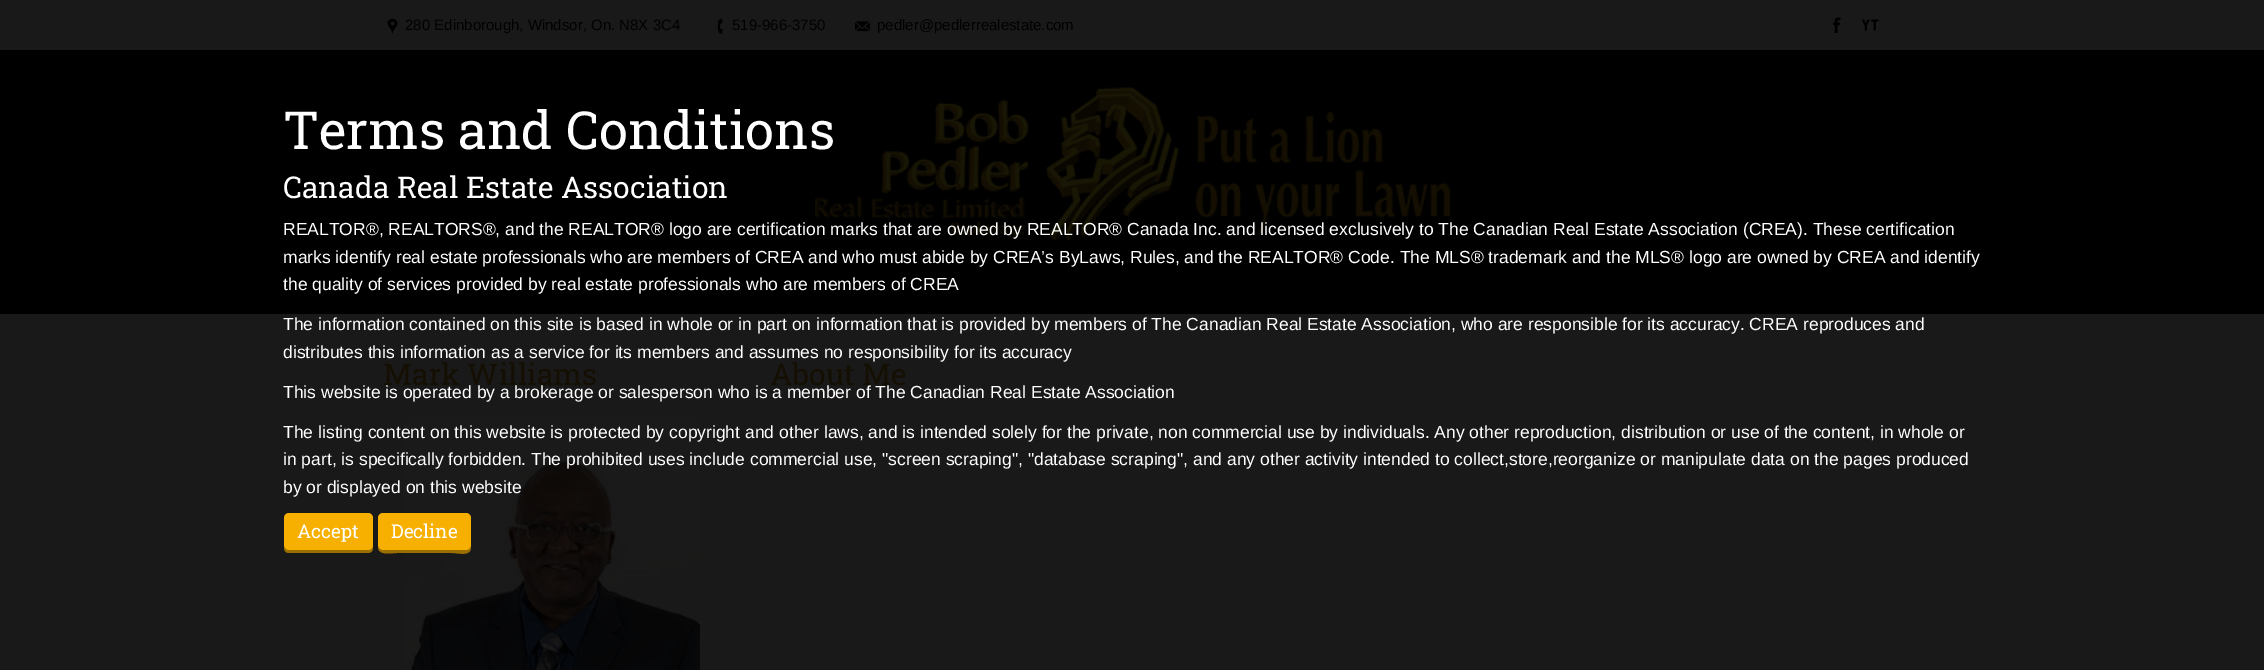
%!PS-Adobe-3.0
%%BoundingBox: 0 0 2264 670
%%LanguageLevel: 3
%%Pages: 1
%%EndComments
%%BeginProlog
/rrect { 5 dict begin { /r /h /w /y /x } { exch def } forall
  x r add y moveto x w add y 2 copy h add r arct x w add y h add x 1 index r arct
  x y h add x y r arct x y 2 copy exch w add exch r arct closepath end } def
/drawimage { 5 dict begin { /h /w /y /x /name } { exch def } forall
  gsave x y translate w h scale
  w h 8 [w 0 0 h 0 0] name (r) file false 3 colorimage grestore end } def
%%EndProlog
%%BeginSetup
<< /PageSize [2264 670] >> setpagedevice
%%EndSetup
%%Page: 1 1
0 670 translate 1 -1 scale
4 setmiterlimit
0.098 setgray
0 0 2264 670 rectfill
(images/1.raw) 387 18 11 16 drawimage
(images/2.raw) 717 18 6 16 drawimage
(images/3.raw) 855 21 15 11 drawimage
(images/4.raw) 1833 17 8 16 drawimage
(images/5.raw) 1861 19 18 12 drawimage
0 setgray
0 50 2264 264 rectfill
(images/6.raw) 815 87 635 155 drawimage
(images/7.raw) 402 421 298 249 drawimage
0.608 0.435 0 setrgbcolor
newpath 284 547 moveto 284 548 lineto 284 551 286 553 289 553 curveto 368 553 lineto 371 553 373 551 373 548 curveto 373 520 lineto 372 518 lineto 372 545 lineto 372 548 370 550 368 550 curveto 289 550 lineto 287 550 285 549 284 547 curveto closepath fill
0.969 0.69 0 setrgbcolor
284 513 89 37 5 rrect fill
0.608 0.435 0 setrgbcolor
newpath 378 547 moveto 378 556 392 553 397 553 curveto 452 553 lineto 459 553 471 557 471 547 curveto 470 549 468 550 466 550 curveto 382 550 lineto 381 550 379 549 378 547 curveto closepath fill
0.969 0.69 0 setrgbcolor
378 513 93 37 5 rrect fill
/LiberationSans-Regular [15 0 0 -15 0 0] selectfont
0.004 setgray
405 30 moveto (280 Edinborough, Windsor, On. N8X 3C4) show
732 30 moveto (519-966-3750) show
877 30 moveto (pedler@pedlerrealestate.com) show
/RobotoSlab-Regular [30 0 0 -30 0 0] selectfont
0.078 0.059 0.008 setrgbcolor
383 385 moveto (Mark Williams) show
770 385 moveto (About Me) show
/RobotoSlab-Regular [52.5 0 0 -52.5 0 0] selectfont
1 setgray
283 149 moveto (Terms and Conditions) show
/RobotoSlab-Regular [30 0 0 -30 0 0] selectfont
283 198 moveto (Canada Real Estate Association) show
/LiberationSans-Regular [17.5 0 0 -17.5 0 0] selectfont
283 235 moveto (REALTOR®, REALTORS®, and the REALTOR® logo are certification marks that are owned by REALTOR® Canada Inc. and licensed exclusively to The Canadian Real Estate Association \(CREA\). These certification) show
283 263 moveto (marks identify real estate professionals who are members of CREA and who must abide by CREA’s ByLaws, Rules, and the REALTOR® Code. The MLS® trademark and the MLS® logo are owned by CREA and identify) show
283 290 moveto (the quality of services provided by real estate professionals who are members of CREA) show
283 330 moveto (The information contained on this site is based in whole or in part on information that is provided by members of The Canadian Real Estate Association, who are responsible for its accuracy. CREA reproduces and) show
283 358 moveto (distributes this information as a service for its members and assumes no responsibility for its accuracy) show
283 398 moveto (This website is operated by a brokerage or salesperson who is a member of The Canadian Real Estate Association) show
283 438 moveto (The listing content on this website is protected by copyright and other laws, and is intended solely for the private, non commercial use by individuals. Any other reproduction, distribution or use of the content, in whole or) show
283 465 moveto (in part, is specifically forbidden. The prohibited uses include commercial use, "screen scraping", "database scraping", and any other activity intended to collect,store,reorganize or manipulate data on the pages produced) show
283 493 moveto (by or displayed on this website) show
/RobotoSlab-Regular [19 0 0 -19 0 0] selectfont
297 538 moveto (Accept) show
391 538 moveto (Decline) show
showpage
%%EOF
